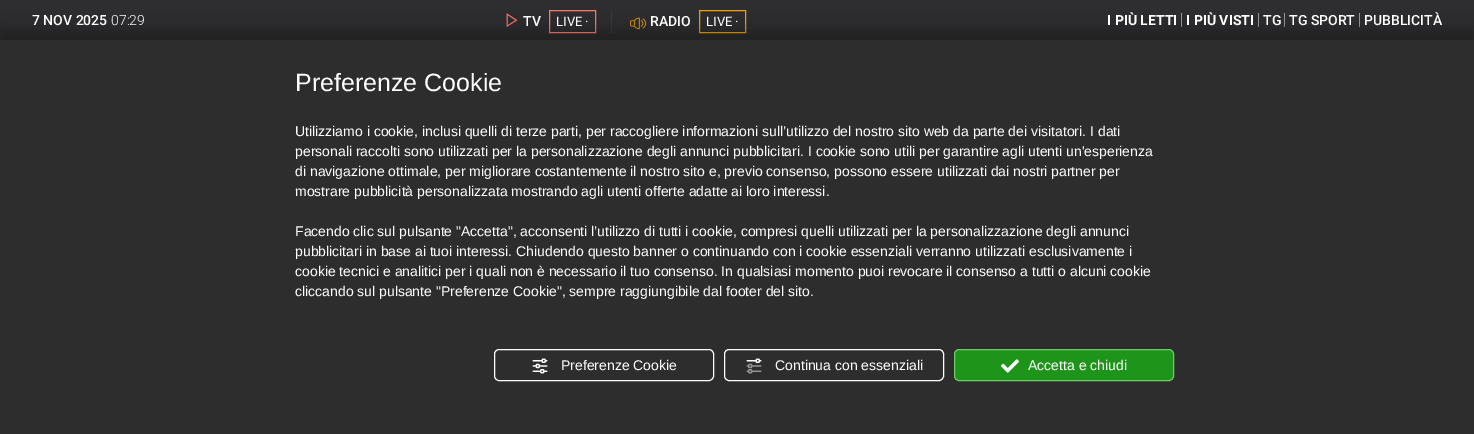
%!PS-Adobe-3.0
%%BoundingBox: 0 0 1474 434
%%LanguageLevel: 3
%%Pages: 1
%%EndComments
%%BeginProlog
/setalpha { dup .setfillconstantalpha .setstrokeconstantalpha } def
/rrect { 5 dict begin { /r /h /w /y /x } { exch def } forall
  x r add y moveto x w add y 2 copy h add r arct x w add y h add x 1 index r arct
  x y h add x y r arct x y 2 copy exch w add exch r arct closepath end } def
/softshadow { 12 dict begin { /a /b /q /h /w /y /x } { exch def } forall gsave /was 0 def
  9 -2 -9 { dup b mul 4 div /e exch def 1 sub .425 mul 2.718 exch exp 1 add a .99 .min exch div /now exch def
    1 1 now sub 1 was sub div sub setalpha /was now def
    w h .min e 2 mul add 0 gt { x e sub y e sub w e 2 mul add h e 2 mul add
      q e add b .6 mul add w h .min 2 div e add .min 0 .max rrect fill } if } for grestore end } def
/drawimage { 5 dict begin { /h /w /y /x /name } { exch def } forall
  gsave x y translate w h scale
  w h 8 [w 0 0 h 0 0] name (r) file false 3 colorimage grestore end } def
%%EndProlog
%%BeginSetup
<< /PageSize [1474 434] /PageUsesTransparency true >> setpagedevice
%%EndSetup
%%Page: 1 1
0 .pushpdf14devicefilter
0 434 translate 1 -1 scale
4 setmiterlimit
0.18 0.18 0.188 setrgbcolor
0 0 1474 434 rectfill
0.227 setgray
611 10 1 23 rectfill
(images/1.raw) 506 13 12 14 drawimage
1 0.471 0.427 setrgbcolor
549.5 10.5 46 22 rectstroke
(images/2.raw) 630 17 16 13 drawimage
0.941 0.635 0.008 setrgbcolor
699.5 10.5 46 22 rectstroke
0.6 setgray
1181 13 1 14 rectfill
1258 13 1 14 rectfill
1284 13 1 14 rectfill
1359 13 1 14 rectfill
0 setgray
0 32 1474 394 0 10 0.38 softshadow
0.176 setgray
0 40 1474 394 rectfill
1 setgray
494.5 349.5 219 31 4.5 rrect stroke
(images/3.raw) 532 358 16 16 drawimage
724.5 349.5 219 31 4.5 rrect stroke
(images/4.raw) 746 358 16 16 drawimage
0.118 0.58 0.102 setrgbcolor
954.5 349.5 219 31 4.5 rrect gsave fill grestore
0.424 0.792 0.412 setrgbcolor
stroke
(images/5.raw) 1001 359 18 14 drawimage
/Roboto-Medium [14 0 0 -14 0 0] selectfont
1 setgray
32 25 moveto (7 NOV 2025) show
/Roboto-Light [14 0 0 -14 0 0] selectfont
111 25 moveto (07:29) show
/Roboto-Medium [14 0 0 -14 0 0] selectfont
523 26 moveto (TV) show
/Roboto-Regular [13 0 0 -13 0 0] selectfont
556 26 moveto (LIVE ·) show
/Roboto-Medium [14 0 0 -14 0 0] selectfont
650 26 moveto (RADIO) show
/Roboto-Regular [13 0 0 -13 0 0] selectfont
706 26 moveto (LIVE ·) show
/Roboto-Bold [14 0 0 -14 0 0] selectfont
1107 25 moveto (I PIÙ LETTI) show
1186 25 moveto (I PIÙ VISTI) show
/Roboto-Medium [14 0 0 -14 0 0] selectfont
1263 25 moveto (TG) show
1289 25 moveto (TG SPORT) show
1364 25 moveto (PUBBLICITÀ) show
/LiberationSans-Regular [25 0 0 -25 0 0] selectfont
295 91 moveto (Preferenze Cookie) show
/LiberationSans-Regular [14 0 0 -14 0 0] selectfont
295 136 moveto (Utilizziamo i cookie, inclusi quelli di terze parti, per raccogliere informazioni sull’utilizzo del nostro sito web da parte dei visitatori. I dati) show
295 156 moveto (personali raccolti sono utilizzati per la personalizzazione degli annunci pubblicitari. I cookie sono utili per garantire agli utenti un'esperienza) show
295 176 moveto (di navigazione ottimale, per migliorare costantemente il nostro sito e, previo consenso, possono essere utilizzati dai nostri partner per) show
295 196 moveto (mostrare pubblicità personalizzata mostrando agli utenti offerte adatte ai loro interessi.) show
295 236 moveto (Facendo clic sul pulsante "Accetta", acconsenti l’utilizzo di tutti i cookie, compresi quelli utilizzati per la personalizzazione degli annunci) show
295 256 moveto (pubblicitari in base ai tuoi interessi. Chiudendo questo banner o continuando con i cookie essenziali verranno utilizzati esclusivamente i) show
295 276 moveto (cookie tecnici e analitici per i quali non è necessario il tuo consenso. In qualsiasi momento puoi revocare il consenso a tutti o alcuni cookie) show
295 296 moveto (cliccando sul pulsante "Preferenze Cookie", sempre raggiungibile dal footer del sito.) show
561 370 moveto (Preferenze Cookie) show
775 370 moveto (Continua con essenziali) show
1028 370 moveto (Accetta e chiudi) show
.poppdf14devicefilter showpage
%%EOF
